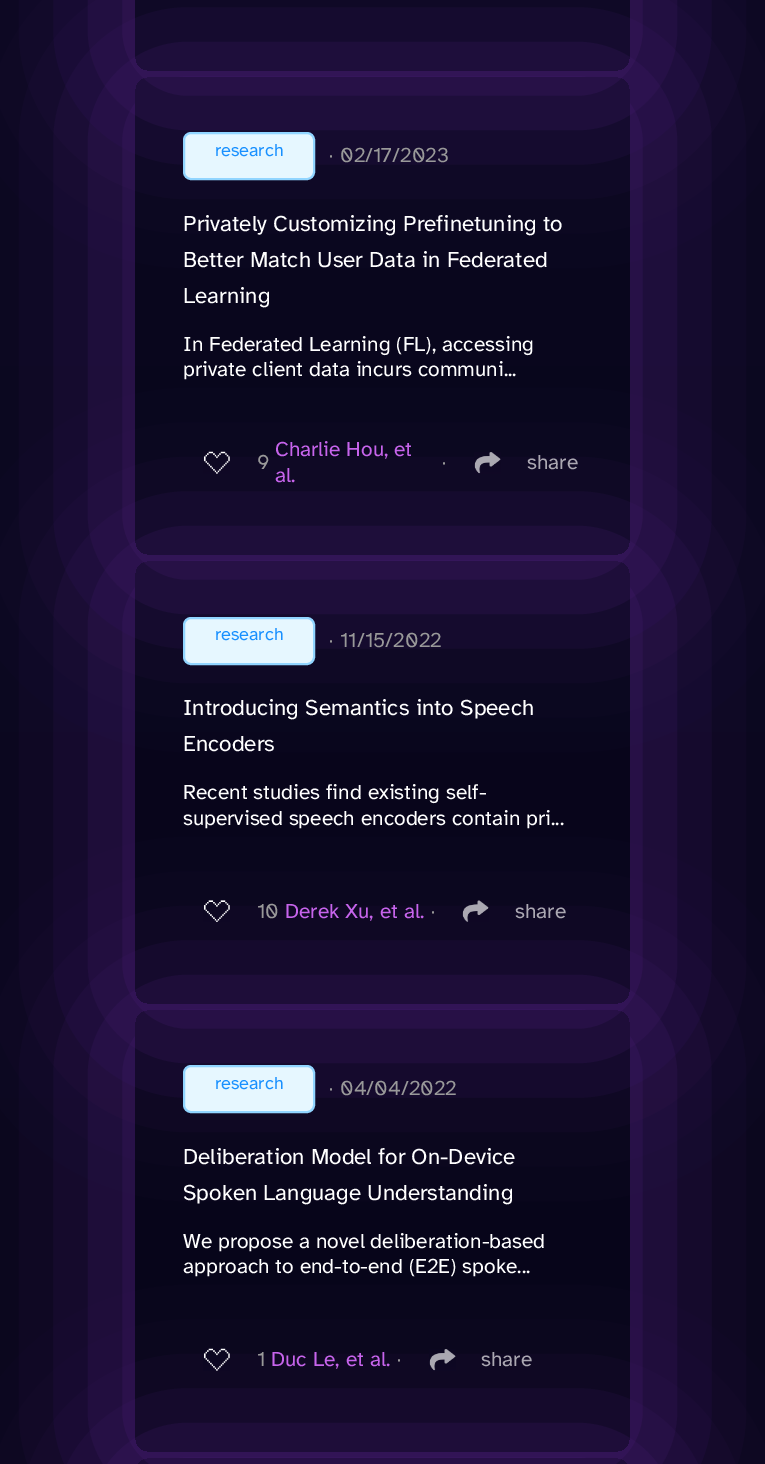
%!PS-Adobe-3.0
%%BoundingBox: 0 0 765 1464
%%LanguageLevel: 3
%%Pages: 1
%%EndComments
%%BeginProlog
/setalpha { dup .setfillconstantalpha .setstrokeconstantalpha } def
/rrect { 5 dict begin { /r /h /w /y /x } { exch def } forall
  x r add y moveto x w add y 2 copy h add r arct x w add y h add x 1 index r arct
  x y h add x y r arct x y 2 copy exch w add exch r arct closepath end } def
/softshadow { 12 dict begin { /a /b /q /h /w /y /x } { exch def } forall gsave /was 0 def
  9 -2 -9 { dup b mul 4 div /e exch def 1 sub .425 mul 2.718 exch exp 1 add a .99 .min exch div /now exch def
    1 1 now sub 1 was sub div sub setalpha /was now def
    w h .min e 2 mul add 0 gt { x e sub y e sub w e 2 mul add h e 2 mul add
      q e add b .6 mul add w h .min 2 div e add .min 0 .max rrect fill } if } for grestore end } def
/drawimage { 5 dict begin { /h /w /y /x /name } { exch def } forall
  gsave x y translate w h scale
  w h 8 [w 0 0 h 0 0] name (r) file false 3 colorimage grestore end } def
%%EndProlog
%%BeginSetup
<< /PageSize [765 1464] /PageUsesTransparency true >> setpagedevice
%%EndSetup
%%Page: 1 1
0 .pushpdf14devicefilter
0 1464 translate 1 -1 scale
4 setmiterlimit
1 setgray
0 0 765 1464 rectfill
gsave newpath 0 0 moveto 765 0 lineto 765 1464 lineto 0 1464 lineto closepath clip newpath
<< /ShadingType 2 /ColorSpace /DeviceRGB /Coords [382 -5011 383 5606] /Extend [true true] /Function << /FunctionType 3 /Domain [0 1] /Functions [<< /FunctionType 2 /Domain [0 1] /C0 [0.467 0.161 0.667] /C1 [0.09 0.039 0.176] /N 1 >> << /FunctionType 2 /Domain [0 1] /C0 [0.09 0.039 0.176] /C1 [0.039 0.024 0.114] /N 1 >> << /FunctionType 2 /Domain [0 1] /C0 [0.039 0.024 0.114] /C1 [0.039 0.024 0.118] /N 1 >> << /FunctionType 2 /Domain [0 1] /C0 [0.039 0.024 0.118] /C1 [0.004 0.012 0.067] /N 1 >> << /FunctionType 2 /Domain [0 1] /C0 [0.004 0.012 0.067] /C1 [0.004 0.012 0.067] /N 1 >>] /Bounds [0.12 0.18 0.44 0.99] /Encode [0 1 0 1 0 1 0 1 0 1] >> >> shfill grestore
gsave
newpath 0 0 moveto 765 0 lineto 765 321 lineto 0 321 lineto closepath 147 -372 moveto 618 -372 lineto 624.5 -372 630 -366.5 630 -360 curveto 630 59 lineto 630 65.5 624.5 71 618 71 curveto 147 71 lineto 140.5 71 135 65.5 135 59 curveto 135 -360 lineto 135 -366.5 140.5 -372 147 -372 curveto closepath eoclip newpath
0.278 0.11 0.451 setrgbcolor
105 -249 555 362 42 69 0.7 softshadow
grestore
gsave
newpath 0 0 moveto 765 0 lineto 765 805 lineto 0 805 lineto closepath 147 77 moveto 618 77 lineto 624.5 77 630 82.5 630 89 curveto 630 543 lineto 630 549.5 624.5 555 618 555 curveto 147 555 lineto 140.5 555 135 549.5 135 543 curveto 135 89 lineto 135 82.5 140.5 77 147 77 curveto closepath eoclip newpath
0.278 0.11 0.451 setrgbcolor
105 59 555 538 42 69 0.7 softshadow
grestore
0.902 0.969 1 setrgbcolor
184 133 130 46 7 rrect gsave fill grestore
0.569 0.835 1 setrgbcolor
2 setlinewidth
stroke
gsave
newpath 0 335 moveto 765 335 lineto 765 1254 lineto 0 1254 lineto closepath 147 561 moveto 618 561 lineto 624.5 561 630 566.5 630 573 curveto 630 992 lineto 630 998.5 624.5 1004 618 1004 curveto 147 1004 lineto 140.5 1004 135 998.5 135 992 curveto 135 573 lineto 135 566.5 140.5 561 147 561 curveto closepath eoclip newpath
0.278 0.11 0.451 setrgbcolor
105 543 555 503 42 69 0.7 softshadow
grestore
(images/1.raw) 203 451 27 23 drawimage
(images/2.raw) 474 452 27 22 drawimage
0.902 0.969 1 setrgbcolor
184 618 130 46 7 rrect gsave fill grestore
0.569 0.835 1 setrgbcolor
stroke
gsave
newpath 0 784 moveto 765 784 lineto 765 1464 lineto 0 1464 lineto closepath 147 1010 moveto 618 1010 lineto 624.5 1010 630 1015.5 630 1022 curveto 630 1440 lineto 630 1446.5 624.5 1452 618 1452 curveto 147 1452 lineto 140.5 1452 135 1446.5 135 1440 curveto 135 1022 lineto 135 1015.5 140.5 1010 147 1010 curveto closepath eoclip newpath
0.278 0.11 0.451 setrgbcolor
105 992 555 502 42 69 0.7 softshadow
grestore
(images/3.raw) 203 900 27 22 drawimage
(images/4.raw) 462 900 27 22 drawimage
0.902 0.969 1 setrgbcolor
184 1066 130 46 7 rrect gsave fill grestore
0.569 0.835 1 setrgbcolor
stroke
gsave
newpath 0 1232 moveto 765 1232 lineto 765 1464 lineto 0 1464 lineto closepath 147 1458 moveto 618 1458 lineto 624.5 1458 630 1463.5 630 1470 curveto 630 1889 lineto 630 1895.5 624.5 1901 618 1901 curveto 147 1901 lineto 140.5 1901 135 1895.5 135 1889 curveto 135 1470 lineto 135 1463.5 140.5 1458 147 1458 curveto closepath eoclip newpath
0.278 0.11 0.451 setrgbcolor
105 1440 555 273 42 69 0.7 softshadow
grestore
(images/5.raw) 203 1348 27 23 drawimage
(images/6.raw) 429 1349 27 22 drawimage
/AtkinsonHyperlegible-Regular [18 0 0 -18 0 0] selectfont
0.094 0.565 1 setrgbcolor
215 156 moveto (research) show
/LiberationSans-Regular [21 0 0 -21 0 0] selectfont
0.6 setgray
328 162 moveto (∙) show
/AtkinsonHyperlegible-Regular [21 0 0 -21 0 0] selectfont
340 162 moveto (02/17/2023) show
/AtkinsonHyperlegible-Regular [22.5 0 0 -22.5 0 0] selectfont
1 setgray
183 231 moveto (Privately Customizing Prefinetuning to) show
183 267 moveto (Better Match User Data in Federated) show
183 303 moveto (Learning) show
/AtkinsonHyperlegible-Regular [21 0 0 -21 0 0] selectfont
183 351 moveto (In Federated Learning \(FL\), accessing) show
183 376 moveto (private client data incurs communi...) show
0.6 setgray
257 469 moveto (9) show
0.78 0.392 0.925 setrgbcolor
275 456 moveto (Charlie Hou, et) show
275 482 moveto (al.) show
/LiberationSans-Regular [21 0 0 -21 0 0] selectfont
0.6 setgray
441 469 moveto (∙) show
/AtkinsonHyperlegible-Regular [21 0 0 -21 0 0] selectfont
0.671 0.659 0.698 setrgbcolor
527 469 moveto (share) show
/AtkinsonHyperlegible-Regular [18 0 0 -18 0 0] selectfont
0.094 0.565 1 setrgbcolor
215 640 moveto (research) show
/LiberationSans-Regular [21 0 0 -21 0 0] selectfont
0.6 setgray
328 647 moveto (∙) show
/AtkinsonHyperlegible-Regular [21 0 0 -21 0 0] selectfont
340 647 moveto (11/15/2022) show
/AtkinsonHyperlegible-Regular [22.5 0 0 -22.5 0 0] selectfont
1 setgray
183 715 moveto (Introducing Semantics into Speech) show
183 751 moveto (Encoders) show
/AtkinsonHyperlegible-Regular [21 0 0 -21 0 0] selectfont
183 799 moveto (Recent studies find existing self-) show
183 825 moveto (supervised speech encoders contain pri...) show
0.6 setgray
257 918 moveto (10) show
0.78 0.392 0.925 setrgbcolor
285 918 moveto (Derek Xu, et al.) show
/LiberationSans-Regular [21 0 0 -21 0 0] selectfont
0.6 setgray
430 918 moveto (∙) show
/AtkinsonHyperlegible-Regular [21 0 0 -21 0 0] selectfont
0.671 0.659 0.698 setrgbcolor
515 918 moveto (share) show
/AtkinsonHyperlegible-Regular [18 0 0 -18 0 0] selectfont
0.094 0.565 1 setrgbcolor
215 1089 moveto (research) show
/LiberationSans-Regular [21 0 0 -21 0 0] selectfont
0.6 setgray
328 1095 moveto (∙) show
/AtkinsonHyperlegible-Regular [21 0 0 -21 0 0] selectfont
340 1095 moveto (04/04/2022) show
/AtkinsonHyperlegible-Regular [22.5 0 0 -22.5 0 0] selectfont
1 setgray
183 1164 moveto (Deliberation Model for On-Device) show
183 1200 moveto (Spoken Language Understanding) show
/AtkinsonHyperlegible-Regular [21 0 0 -21 0 0] selectfont
183 1248 moveto (We propose a novel deliberation-based) show
183 1273 moveto (approach to end-to-end \(E2E\) spoke...) show
0.6 setgray
257 1366 moveto (1) show
0.78 0.392 0.925 setrgbcolor
271 1366 moveto (Duc Le, et al.) show
/LiberationSans-Regular [21 0 0 -21 0 0] selectfont
0.6 setgray
396 1366 moveto (∙) show
/AtkinsonHyperlegible-Regular [21 0 0 -21 0 0] selectfont
0.671 0.659 0.698 setrgbcolor
481 1366 moveto (share) show
.poppdf14devicefilter showpage
%%EOF
